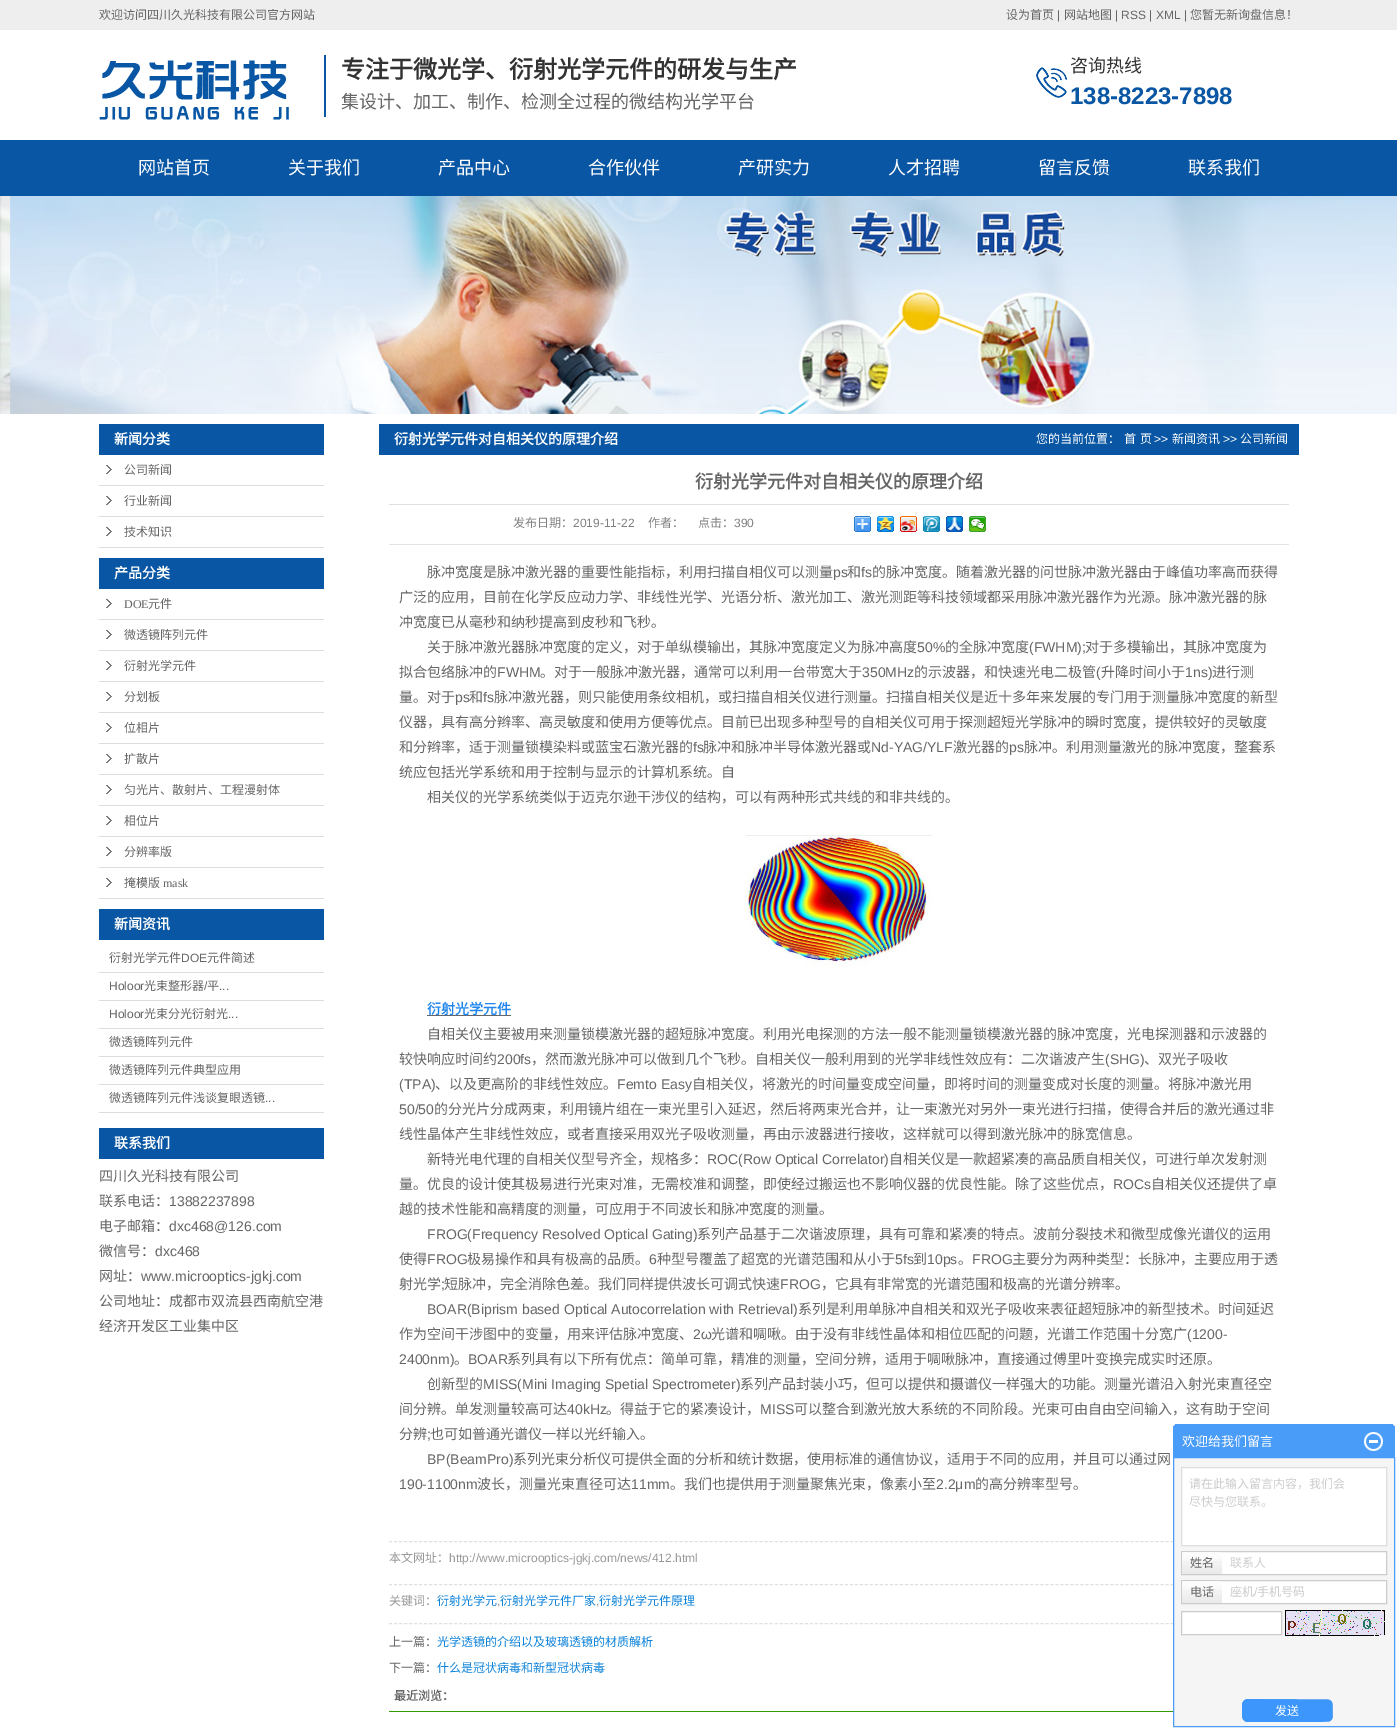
%!PS-Adobe-3.0
%%BoundingBox: 0 0 1397 1728
%%LanguageLevel: 3
%%Pages: 1
%%EndComments
%%BeginProlog
/drawimage { 5 dict begin { /h /w /y /x /name } { exch def } forall
  gsave x y translate w h scale
  w h 8 [w 0 0 h 0 0] name (r) file false 3 colorimage grestore end } def
%%EndProlog
%%BeginSetup
<< /PageSize [1397 1728] >> setpagedevice
%%EndSetup
%%Page: 1 1
0 1728 translate 1 -1 scale
4 setmiterlimit
1 setgray
0 0 1397 1728 rectfill
0.933 setgray
0 0 1397 30 rectfill
(images/1.raw) 99 60 190 60 drawimage
0.035 0.337 0.643 setrgbcolor
324 55 2 62 rectfill
(images/2.raw) 1036 67 31 31 drawimage
0 140 1397 56 rectfill
(images/3.raw) 0 196 1397 218 drawimage
99 424 225 31 rectfill
(images/4.raw) 106 465 6 9 drawimage
0.867 setgray
99 485 225 1 rectfill
(images/4.raw) 106 496 6 9 drawimage
99 516 225 1 rectfill
(images/4.raw) 106 527 6 9 drawimage
99 547 225 1 rectfill
0.035 0.337 0.643 setrgbcolor
99 558 225 31 rectfill
(images/4.raw) 106 599 6 9 drawimage
0.867 setgray
99 619 225 1 rectfill
(images/4.raw) 106 630 6 9 drawimage
99 650 225 1 rectfill
(images/4.raw) 106 661 6 9 drawimage
99 681 225 1 rectfill
(images/4.raw) 106 692 6 9 drawimage
99 712 225 1 rectfill
(images/4.raw) 106 723 6 9 drawimage
99 743 225 1 rectfill
(images/4.raw) 106 754 6 9 drawimage
99 774 225 1 rectfill
(images/4.raw) 106 785 6 9 drawimage
99 805 225 1 rectfill
(images/4.raw) 106 816 6 9 drawimage
99 836 225 1 rectfill
(images/4.raw) 106 847 6 9 drawimage
99 867 225 1 rectfill
(images/4.raw) 106 878 6 9 drawimage
99 898 225 1 rectfill
0.035 0.337 0.643 setrgbcolor
99 909 225 31 rectfill
0.867 setgray
99 972 225 1 rectfill
99 1000 225 1 rectfill
99 1028 225 1 rectfill
99 1056 225 1 rectfill
99 1084 225 1 rectfill
99 1112 225 1 rectfill
0.035 0.337 0.643 setrgbcolor
99 1128 225 31 rectfill
379 424 920 31 rectfill
0.878 0.882 0.863 setrgbcolor
389 504 900 1 rectfill
0.882 0.894 0.902 setrgbcolor
389 544 900 1 rectfill
(images/5.raw) 854 516 17 16 drawimage
(images/6.raw) 877 516 17 16 drawimage
(images/7.raw) 900 516 17 16 drawimage
(images/8.raw) 923 516 17 16 drawimage
(images/9.raw) 946 516 17 16 drawimage
(images/10.raw) 969 516 17 16 drawimage
(images/11.raw) 746 835 186 131 drawimage
0.4 setgray
427 1015 84 1 rectfill
0.878 0.882 0.863 setrgbcolor
[3 2.01] 0 setdash
newpath 389 1541.5 moveto 1289 1541.5 lineto stroke
newpath 389 1584.5 moveto 1289 1584.5 lineto stroke
newpath 389 1623.5 moveto 1289 1623.5 lineto stroke
0.196 0.608 0 setrgbcolor
389 1711 784 1 rectfill
0.29 0.612 0.976 setrgbcolor
1175 1424 218 1 rectfill
1174 1425 220 1 rectfill
1173 1426 222 31 rectfill
(images/12.raw) 1364 1432 19 19 drawimage
0.961 setgray
newpath 1173.5 1457.5 moveto 1394.5 1457.5 lineto 1394.5 1726.5 lineto 1173.5 1726.5 lineto closepath gsave fill grestore
0.29 0.612 0.976 setrgbcolor
[] 0 setdash
stroke
1 setgray
newpath 1181.5 1467.5 moveto 1386.5 1467.5 lineto 1386.5 1545.5 lineto 1181.5 1545.5 lineto closepath gsave fill grestore
0.871 setgray
stroke
1 setgray
1222 1552 164 22 rectfill
0.8 setgray
1181.5 1551.5 205 23 rectstroke
(images/13.raw) 1182 1552 40 22 drawimage
1 setgray
1222 1581 164 22 rectfill
0.8 setgray
1181.5 1580.5 205 23 rectstroke
(images/13.raw) 1182 1581 40 22 drawimage
1 setgray
newpath 1181.5 1611.5 moveto 1281.5 1611.5 lineto 1281.5 1634.5 lineto 1181.5 1634.5 lineto closepath gsave fill grestore
0.8 setgray
stroke
(images/14.raw) 1285 1610 100 26 drawimage
(images/15.raw) 1242 1699 91 24 drawimage
/NotoSansCJKSC-Regular [12 0 0 -12 0 0] selectfont
0.4 setgray
99 19 moveto (欢迎访问四川久光科技有限公司官方网站) show
1006 19 moveto (设为首页) show
/LiberationSans-Regular [12 0 0 -12 0 0] selectfont
1057 19 moveto (|) show
/NotoSansCJKSC-Regular [12 0 0 -12 0 0] selectfont
1064 19 moveto (网站地图) show
/LiberationSans-Regular [12 0 0 -12 0 0] selectfont
1115 19 moveto (| RSS | XML |) show
/NotoSansCJKSC-Regular [12 0 0 -12 0 0] selectfont
1190 19 moveto (您暂无新询盘信息！) show
/NotoSansCJKSC-Bold [24 0 0 -24 0 0] selectfont
0.2 setgray
341 78 moveto (专注于微光学、衍射光学元件的研发与生产) show
/NotoSansCJKSC-Regular [18 0 0 -18 0 0] selectfont
0.4 setgray
341 108 moveto (集设计、加工、制作、检测全过程的微结构光学平台) show
0.2 setgray
1070 72 moveto (咨询热线) show
/LiberationSans-Bold [24 0 0 -24 0 0] selectfont
0.035 0.337 0.643 setrgbcolor
1070 104 moveto (138-8223-7898) show
/NotoSansCJKSC-Regular [18 0 0 -18 0 0] selectfont
1 setgray
138 174 moveto (网站首页) show
288 174 moveto (关于我们) show
438 174 moveto (产品中心) show
588 174 moveto (合作伙伴) show
738 174 moveto (产研实力) show
888 174 moveto (人才招聘) show
1038 174 moveto (留言反馈) show
1188 174 moveto (联系我们) show
/NotoSansCJKSC-Bold [14 0 0 -14 0 0] selectfont
114 444 moveto (新闻分类) show
/NotoSansCJKSC-Regular [12 0 0 -12 0 0] selectfont
0.4 setgray
124 474 moveto (公司新闻) show
124 505 moveto (行业新闻) show
124 536 moveto (技术知识) show
/NotoSansCJKSC-Bold [14 0 0 -14 0 0] selectfont
1 setgray
114 578 moveto (产品分类) show
/LiberationSerif-Regular [12 0 0 -12 0 0] selectfont
0.4 setgray
124 608 moveto (DOE) show
/NotoSansCJKSC-Regular [12 0 0 -12 0 0] selectfont
148 608 moveto (元件) show
124 639 moveto (微透镜阵列元件) show
124 670 moveto (衍射光学元件) show
124 701 moveto (分划板) show
124 732 moveto (位相片) show
124 763 moveto (扩散片) show
124 794 moveto (匀光片、散射片、工程漫射体) show
124 825 moveto (相位片) show
124 856 moveto (分辨率版) show
124 887 moveto (掩模版) show
/LiberationSerif-Regular [12 0 0 -12 0 0] selectfont
163 887 moveto (mask) show
/NotoSansCJKSC-Bold [14 0 0 -14 0 0] selectfont
1 setgray
114 929 moveto (新闻资讯) show
/NotoSansCJKSC-Regular [12 0 0 -12 0 0] selectfont
0.4 setgray
109 962 moveto (衍射光学元件) show
/LiberationSans-Regular [12 0 0 -12 0 0] selectfont
181 962 moveto (DOE) show
/NotoSansCJKSC-Regular [12 0 0 -12 0 0] selectfont
207 962 moveto (元件简述) show
/LiberationSans-Regular [12 0 0 -12 0 0] selectfont
109 990 moveto (Holoor) show
/NotoSansCJKSC-Regular [12 0 0 -12 0 0] selectfont
144 990 moveto (光束整形器) show
/LiberationSans-Regular [12 0 0 -12 0 0] selectfont
204 990 moveto (/) show
/NotoSansCJKSC-Regular [12 0 0 -12 0 0] selectfont
207 990 moveto (平) show
/LiberationSans-Regular [12 0 0 -12 0 0] selectfont
219 990 moveto (...) show
109 1018 moveto (Holoor) show
/NotoSansCJKSC-Regular [12 0 0 -12 0 0] selectfont
144 1018 moveto (光束分光衍射光) show
/LiberationSans-Regular [12 0 0 -12 0 0] selectfont
228 1018 moveto (...) show
/NotoSansCJKSC-Regular [12 0 0 -12 0 0] selectfont
109 1046 moveto (微透镜阵列元件) show
109 1074 moveto (微透镜阵列元件典型应用) show
109 1102 moveto (微透镜阵列元件浅谈复眼透镜) show
/LiberationSans-Regular [12 0 0 -12 0 0] selectfont
265 1102 moveto (...) show
/NotoSansCJKSC-Bold [14 0 0 -14 0 0] selectfont
1 setgray
114 1148 moveto (联系我们) show
/NotoSansCJKSC-Regular [14 0 0 -14 0 0] selectfont
0.4 setgray
99 1181 moveto (四川久光科技有限公司) show
99 1206 moveto (联系电话：) show
/LiberationSans-Regular [14 0 0 -14 0 0] selectfont
169 1206 moveto (13882237898) show
/NotoSansCJKSC-Regular [14 0 0 -14 0 0] selectfont
99 1231 moveto (电子邮箱：) show
/LiberationSans-Regular [14 0 0 -14 0 0] selectfont
169 1231 moveto (dxc468@126.com) show
/NotoSansCJKSC-Regular [14 0 0 -14 0 0] selectfont
99 1256 moveto (微信号：) show
/LiberationSans-Regular [14 0 0 -14 0 0] selectfont
155 1256 moveto (dxc468) show
/NotoSansCJKSC-Regular [14 0 0 -14 0 0] selectfont
99 1281 moveto (网址：) show
/LiberationSans-Regular [14 0 0 -14 0 0] selectfont
141 1281 moveto (www.microoptics-jgkj.com) show
/NotoSansCJKSC-Regular [14 0 0 -14 0 0] selectfont
99 1306 moveto (公司地址：成都市双流县西南航空港) show
99 1331 moveto (经济开发区工业集中区) show
/NotoSansCJKSC-Bold [14 0 0 -14 0 0] selectfont
1 setgray
394 444 moveto (衍射光学元件对自相关仪的原理介绍) show
/NotoSansCJKSC-Regular [12 0 0 -12 0 0] selectfont
1036 443 moveto (您的当前位置：) show
1124 443 moveto 1 0 32 (首 页) widthshow
/LiberationSans-Regular [12 0 0 -12 0 0] selectfont
1154 443 moveto (>>) show
/NotoSansCJKSC-Regular [12 0 0 -12 0 0] selectfont
1172 443 moveto (新闻资讯) show
/LiberationSans-Regular [12 0 0 -12 0 0] selectfont
1223 443 moveto (>>) show
/NotoSansCJKSC-Regular [12 0 0 -12 0 0] selectfont
1240 443 moveto (公司新闻) show
/NotoSansCJKSC-Bold [18 0 0 -18 0 0] selectfont
0.4 setgray
695 488 moveto (衍射光学元件对自相关仪的原理介绍) show
/NotoSansCJKSC-Regular [12 0 0 -12 0 0] selectfont
0.502 setgray
513 527 moveto (发布日期：) show
/LiberationSans-Regular [12 0 0 -12 0 0] selectfont
573 527 moveto (2019-11-22) show
/NotoSansCJKSC-Regular [12 0 0 -12 0 0] selectfont
648 527 moveto (作者：) show
698 527 moveto (点击：) show
/LiberationSans-Regular [12 0 0 -12 0 0] selectfont
734 527 moveto (390) show
/NotoSansCJKSC-Regular [14 0 0 -14 0 0] selectfont
0.4 setgray
427 577 moveto (脉冲宽度是脉冲激光器的重要性能指标，利用扫描自相仪可以测量) show
/LiberationSans-Regular [14 0 0 -14 0 0] selectfont
833 577 moveto (ps) show
/NotoSansCJKSC-Regular [14 0 0 -14 0 0] selectfont
847 577 moveto (和) show
/LiberationSans-Regular [14 0 0 -14 0 0] selectfont
861 577 moveto (fs) show
/NotoSansCJKSC-Regular [14 0 0 -14 0 0] selectfont
872 577 moveto (的脉冲宽度。随着激光器的问世脉冲激光器由于峰值功率高而获得) show
399 602 moveto (广泛的应用，目前在化学反应动力学、非线性光学、光语分析、激光加工、激光测距等科技领域都采用脉冲激光器作为光源。脉冲激光器的脉) show
399 627 moveto (冲宽度已从毫秒和纳秒提高到皮秒和飞秒。) show
427 652 moveto (关于脉冲激光器脉冲宽度的定义，对于单纵模输出，其脉冲宽度定义为脉冲高度) show
/LiberationSans-Regular [14 0 0 -14 0 0] selectfont
917 652 moveto (50%) show
/NotoSansCJKSC-Regular [14 0 0 -14 0 0] selectfont
945 652 moveto (的全脉冲宽度) show
/LiberationSans-Regular [14 0 0 -14 0 0] selectfont
1029 652 moveto (\(FWHM\);) show
/NotoSansCJKSC-Regular [14 0 0 -14 0 0] selectfont
1085 652 moveto (对于多模输出，其脉冲宽度为) show
399 677 moveto (拟合包络脉冲的) show
/LiberationSans-Regular [14 0 0 -14 0 0] selectfont
497 677 moveto (FWHM) show
/NotoSansCJKSC-Regular [14 0 0 -14 0 0] selectfont
540 677 moveto (。对于一般脉冲激光器，通常可以利用一台带宽大于) show
/LiberationSans-Regular [14 0 0 -14 0 0] selectfont
862 677 moveto (350MHz) show
/NotoSansCJKSC-Regular [14 0 0 -14 0 0] selectfont
914 677 moveto (的示波器，和快速光电二极管) show
/LiberationSans-Regular [14 0 0 -14 0 0] selectfont
1096 677 moveto (\() show
/NotoSansCJKSC-Regular [14 0 0 -14 0 0] selectfont
1101 677 moveto (升降时间小于) show
/LiberationSans-Regular [14 0 0 -14 0 0] selectfont
1185 677 moveto (1ns\)) show
/NotoSansCJKSC-Regular [14 0 0 -14 0 0] selectfont
1212 677 moveto (进行测) show
399 702 moveto (量。对于) show
/LiberationSans-Regular [14 0 0 -14 0 0] selectfont
455 702 moveto (ps) show
/NotoSansCJKSC-Regular [14 0 0 -14 0 0] selectfont
469 702 moveto (和) show
/LiberationSans-Regular [14 0 0 -14 0 0] selectfont
483 702 moveto (fs) show
/NotoSansCJKSC-Regular [14 0 0 -14 0 0] selectfont
494 702 moveto (脉冲激光器，则只能使用条纹相机，或扫描自相关仪进行测量。扫描自相关仪是近十多年来发展的专门用于测量脉冲宽度的新型) show
399 727 moveto (仪器，具有高分辫率、高灵敏度和使用方便等优点。目前已出现多种型号的自相关仪可用于探测超短光学脉冲的瞬时宽度，提供较好的灵敏度) show
399 752 moveto (和分辫率，适于测量锁模染料或蓝宝石激光器的) show
/LiberationSans-Regular [14 0 0 -14 0 0] selectfont
693 752 moveto (fs) show
/NotoSansCJKSC-Regular [14 0 0 -14 0 0] selectfont
703 752 moveto (脉冲和脉冲半导体激光器或) show
/LiberationSans-Regular [14 0 0 -14 0 0] selectfont
871 752 moveto (Nd-YAG/YLF) show
/NotoSansCJKSC-Regular [14 0 0 -14 0 0] selectfont
953 752 moveto (激光器的) show
/LiberationSans-Regular [14 0 0 -14 0 0] selectfont
1009 752 moveto (ps) show
/NotoSansCJKSC-Regular [14 0 0 -14 0 0] selectfont
1024 752 moveto (脉冲。利用测量激光的脉冲宽度，整套系) show
399 777 moveto (统应包括光学系统和用于控制与显示的计算机系统。自) show
427 802 moveto (相关仪的光学系统类似于迈克尔逊干涉仪的结构，可以有两种形式共线的和非共线的。) show
/NotoSansCJKSC-Bold [14 0 0 -14 0 0] selectfont
0.125 0.525 0.933 setrgbcolor
427 1014 moveto (衍射光学元件) show
/NotoSansCJKSC-Regular [14 0 0 -14 0 0] selectfont
0.4 setgray
427 1039 moveto (自相关仪主要被用来测量锁模激光器的超短脉冲宽度。利用光电探测的方法一般不能测量锁模激光器的脉冲宽度，光电探测器和示波器的) show
399 1064 moveto (较快响应时间约) show
/LiberationSans-Regular [14 0 0 -14 0 0] selectfont
497 1064 moveto (200fs) show
/NotoSansCJKSC-Regular [14 0 0 -14 0 0] selectfont
531 1064 moveto (，然而激光脉冲可以做到几个飞秒。自相关仪一般利用到的光学非线性效应有：二次谐波产生) show
/LiberationSans-Regular [14 0 0 -14 0 0] selectfont
1105 1064 moveto (\(SHG\)) show
/NotoSansCJKSC-Regular [14 0 0 -14 0 0] selectfont
1144 1064 moveto (、双光子吸收) show
/LiberationSans-Regular [14 0 0 -14 0 0] selectfont
399 1089 moveto (\(TPA\)) show
/NotoSansCJKSC-Regular [14 0 0 -14 0 0] selectfont
435 1089 moveto (、以及更高阶的非线性效应。) show
/LiberationSans-Regular [14 0 0 -14 0 0] selectfont
617 1089 moveto (Femto Easy) show
/NotoSansCJKSC-Regular [14 0 0 -14 0 0] selectfont
692 1089 moveto (自相关仪，将激光的时间量变成空间量，即将时间的测量变成对长度的测量。将脉冲激光用) show
/LiberationSans-Regular [14 0 0 -14 0 0] selectfont
399 1114 moveto (50/50) show
/NotoSansCJKSC-Regular [14 0 0 -14 0 0] selectfont
434 1114 moveto (的分光片分成两束，利用镜片组在一束光里引入延迟，然后将两束光合并，让一束激光对另外一束光进行扫描，使得合并后的激光通过非) show
399 1139 moveto (线性晶体产生非线性效应，或者直接采用双光子吸收测量，再由示波器进行接收，这样就可以得到激光脉冲的脉宽信息。) show
427 1164 moveto (新特光电代理的自相关仪型号齐全，规格多：) show
/LiberationSans-Regular [14 0 0 -14 0 0] selectfont
707 1164 moveto (ROC\(Row Optical Correlator\)) show
/NotoSansCJKSC-Regular [14 0 0 -14 0 0] selectfont
889 1164 moveto (自相关仪是一款超紧凑的高品质自相关仪，可进行单次发射测) show
399 1189 moveto (量。优良的设计使其极易进行光束对准，无需校准和调整，即使经过搬运也不影响仪器的优良性能。除了这些优点，) show
/LiberationSans-Regular [14 0 0 -14 0 0] selectfont
1113 1189 moveto (ROCs) show
/NotoSansCJKSC-Regular [14 0 0 -14 0 0] selectfont
1151 1189 moveto (自相关仪还提供了卓) show
399 1214 moveto (越的技术性能和高精度的测量，可应用于不同波长和脉冲宽度的测量。) show
/LiberationSans-Regular [14 0 0 -14 0 0] selectfont
427 1239 moveto (FROG\(Frequency Resolved Optical Gating\)) show
/NotoSansCJKSC-Regular [14 0 0 -14 0 0] selectfont
697 1239 moveto (系列产品基于二次谐波原理，具有可靠和紧凑的特点。波前分裂技术和微型成像光谱仪的运用) show
399 1264 moveto (使得) show
/LiberationSans-Regular [14 0 0 -14 0 0] selectfont
427 1264 moveto (FROG) show
/NotoSansCJKSC-Regular [14 0 0 -14 0 0] selectfont
467 1264 moveto (极易操作和具有极高的品质。) show
/LiberationSans-Regular [14 0 0 -14 0 0] selectfont
649 1264 moveto (6) show
/NotoSansCJKSC-Regular [14 0 0 -14 0 0] selectfont
657 1264 moveto (种型号覆盖了超宽的光谱范围和从小于) show
/LiberationSans-Regular [14 0 0 -14 0 0] selectfont
895 1264 moveto (5fs) show
/NotoSansCJKSC-Regular [14 0 0 -14 0 0] selectfont
913 1264 moveto (到) show
/LiberationSans-Regular [14 0 0 -14 0 0] selectfont
927 1264 moveto (10ps) show
/NotoSansCJKSC-Regular [14 0 0 -14 0 0] selectfont
958 1264 moveto (。) show
/LiberationSans-Regular [14 0 0 -14 0 0] selectfont
972 1264 moveto (FROG) show
/NotoSansCJKSC-Regular [14 0 0 -14 0 0] selectfont
1012 1264 moveto (主要分为两种类型：长脉冲，主要应用于透) show
399 1289 moveto (射光学) show
/LiberationSans-Regular [14 0 0 -14 0 0] selectfont
441 1289 moveto (;) show
/NotoSansCJKSC-Regular [14 0 0 -14 0 0] selectfont
444 1289 moveto (短脉冲，完全消除色差。我们同样提供波长可调式快速) show
/LiberationSans-Regular [14 0 0 -14 0 0] selectfont
780 1289 moveto (FROG) show
/NotoSansCJKSC-Regular [14 0 0 -14 0 0] selectfont
821 1289 moveto (，它具有非常宽的光谱范围和极高的光谱分辨率。) show
/LiberationSans-Regular [14 0 0 -14 0 0] selectfont
427 1314 moveto (BOAR\(Biprism based Optical Autocorrelation with Retrieval\)) show
/NotoSansCJKSC-Regular [14 0 0 -14 0 0] selectfont
798 1314 moveto (系列是利用单脉冲自相关和双光子吸收来表征超短脉冲的新型技术。时间延迟) show
399 1339 moveto (作为空间干涉图中的变量，用来评估脉冲宽度、) show
/LiberationSans-Regular [14 0 0 -14 0 0] selectfont
693 1339 moveto (2ω) show
/NotoSansCJKSC-Regular [14 0 0 -14 0 0] selectfont
711 1339 moveto (光谱和啁啾。由于没有非线性晶体和相位匹配的问题，光谱工作范围十分宽广) show
/LiberationSans-Regular [14 0 0 -14 0 0] selectfont
1187 1339 moveto (\(1200-) show
399 1364 moveto (2400nm\)) show
/NotoSansCJKSC-Regular [14 0 0 -14 0 0] selectfont
454 1364 moveto (。) show
/LiberationSans-Regular [14 0 0 -14 0 0] selectfont
468 1364 moveto (BOAR) show
/NotoSansCJKSC-Regular [14 0 0 -14 0 0] selectfont
507 1364 moveto (系列具有以下所有优点：简单可靠，精准的测量，空间分辨，适用于啁啾脉冲，直接通过傅里叶变换完成实时还原。) show
427 1389 moveto (创新型的) show
/LiberationSans-Regular [14 0 0 -14 0 0] selectfont
483 1389 moveto (MISS\(Mini Imaging Spetial Spectrometer\)) show
/NotoSansCJKSC-Regular [14 0 0 -14 0 0] selectfont
740 1389 moveto (系列产品封装小巧，但可以提供和摄谱仪一样强大的功能。测量光谱沿入射光束直径空) show
399 1414 moveto (间分辨。单发测量较高可达) show
/LiberationSans-Regular [14 0 0 -14 0 0] selectfont
567 1414 moveto (40kHz) show
/NotoSansCJKSC-Regular [14 0 0 -14 0 0] selectfont
606 1414 moveto (。得益于它的紧凑设计，) show
/LiberationSans-Regular [14 0 0 -14 0 0] selectfont
760 1414 moveto (MISS) show
/NotoSansCJKSC-Regular [14 0 0 -14 0 0] selectfont
794 1414 moveto (可以整合到激光放大系统的不同阶段。光束可由自由空间输入，这有助于空间) show
399 1439 moveto (分辨) show
/LiberationSans-Regular [14 0 0 -14 0 0] selectfont
427 1439 moveto (;) show
/NotoSansCJKSC-Regular [14 0 0 -14 0 0] selectfont
430 1439 moveto (也可如普通光谱仪一样以光纤输入。) show
/LiberationSans-Regular [14 0 0 -14 0 0] selectfont
427 1464 moveto (BP\(BeamPro\)) show
/NotoSansCJKSC-Regular [14 0 0 -14 0 0] selectfont
513 1464 moveto (系列光束分析仪可提供全面的分析和统计数据，使用标准的通信协议，适用于不同的应用，并且可以通过网) show
/LiberationSans-Regular [14 0 0 -14 0 0] selectfont
399 1489 moveto (190-1100nm) show
/NotoSansCJKSC-Regular [14 0 0 -14 0 0] selectfont
477 1489 moveto (波长，测量光束直径可达) show
/LiberationSans-Regular [14 0 0 -14 0 0] selectfont
631 1489 moveto (11mm) show
/NotoSansCJKSC-Regular [14 0 0 -14 0 0] selectfont
670 1489 moveto (。我们也提供用于测量聚焦光束，像素小至) show
/LiberationSans-Regular [14 0 0 -14 0 0] selectfont
936 1489 moveto (2.2μm) show
/NotoSansCJKSC-Regular [14 0 0 -14 0 0] selectfont
975 1489 moveto (的高分辨率型号。) show
/NotoSansCJKSC-Regular [12 0 0 -12 0 0] selectfont
0.6 setgray
389 1562 moveto (本文网址：) show
/LiberationSans-Regular [12 0 0 -12 0 0] selectfont
449 1562 moveto (http://www.microoptics-jgkj.com/news/412.html) show
/NotoSansCJKSC-Regular [12 0 0 -12 0 0] selectfont
389 1605 moveto (关键词：) show
0.051 0.514 0.855 setrgbcolor
437 1605 moveto (衍射光学元) show
/LiberationSans-Regular [12 0 0 -12 0 0] selectfont
0.6 setgray
497 1605 moveto (,) show
/NotoSansCJKSC-Regular [12 0 0 -12 0 0] selectfont
0.051 0.514 0.855 setrgbcolor
500 1605 moveto (衍射光学元件厂家) show
/LiberationSans-Regular [12 0 0 -12 0 0] selectfont
0.6 setgray
596 1605 moveto (,) show
/NotoSansCJKSC-Regular [12 0 0 -12 0 0] selectfont
0.051 0.514 0.855 setrgbcolor
599 1605 moveto (衍射光学元件原理) show
0.4 setgray
389 1646 moveto (上一篇：) show
0.051 0.514 0.855 setrgbcolor
437 1646 moveto (光学透镜的介绍以及玻璃透镜的材质解析) show
0.4 setgray
389 1672 moveto (下一篇：) show
0.051 0.514 0.855 setrgbcolor
437 1672 moveto (什么是冠状病毒和新型冠状病毒) show
/NotoSansCJKSC-Bold [12 0 0 -12 0 0] selectfont
0.4 setgray
394 1700 moveto (最近浏览：) show
/NotoSansCJKSC-Regular [13 0 0 -13 0 0] selectfont
1 setgray
1182 1446 moveto (欢迎给我们留言) show
/NotoSansCJKSC-Regular [12 0 0 -12 0 0] selectfont
0.8 setgray
1189 1488 moveto (请在此输入留言内容，我们会) show
1189 1506 moveto (尽快与您联系。) show
0.4 setgray
1190 1567 moveto (姓名) show
0.8 setgray
1230 1567 moveto (联系人) show
0.4 setgray
1190 1596 moveto (电话) show
0.8 setgray
1230 1596 moveto (座机) show
/LiberationSans-Regular [12 0 0 -12 0 0] selectfont
1254 1596 moveto (/) show
/NotoSansCJKSC-Regular [12 0 0 -12 0 0] selectfont
1257 1596 moveto (手机号码) show
1 setgray
1275 1715 moveto (发送) show
showpage
%%EOF
